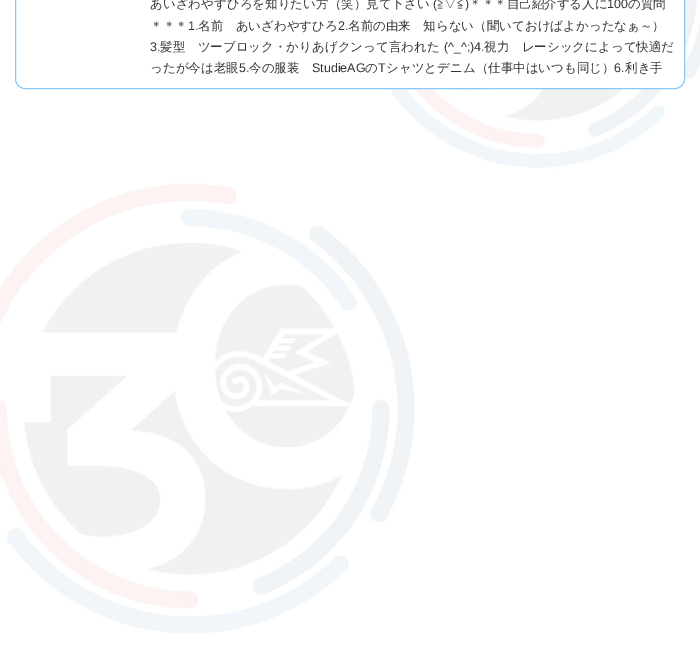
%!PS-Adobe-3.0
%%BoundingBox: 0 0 700 667
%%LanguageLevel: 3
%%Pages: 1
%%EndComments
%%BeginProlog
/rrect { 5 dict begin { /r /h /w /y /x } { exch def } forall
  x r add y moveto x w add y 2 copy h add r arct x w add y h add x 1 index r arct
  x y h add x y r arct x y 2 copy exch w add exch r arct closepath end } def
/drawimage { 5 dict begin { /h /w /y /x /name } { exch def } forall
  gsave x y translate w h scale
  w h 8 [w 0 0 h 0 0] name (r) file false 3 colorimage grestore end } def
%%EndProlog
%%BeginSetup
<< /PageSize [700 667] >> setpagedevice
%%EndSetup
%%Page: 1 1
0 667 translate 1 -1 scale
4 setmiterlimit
1 setgray
0 0 700 667 rectfill
(images/1.raw) 0 0 700 634 drawimage
15.5 -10.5 669 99 9.5 rrect gsave fill grestore
0.522 0.792 0.957 setrgbcolor
stroke
/WenQuanYiZenHei-Medium [12.5 0 0 -12.5 0 0] selectfont
0.2 setgray
150 8 moveto (あいざわやすひろを知りたい方（笑）見て下さい) show
/LiberationSans-Regular [12.5 0 0 -12.5 0 0] selectfont
433 8 moveto (\() show
/WenQuanYiZenHei-Medium [12.5 0 0 -12.5 0 0] selectfont
437 8 moveto (≧▽≦) show
/LiberationSans-Regular [12.5 0 0 -12.5 0 0] selectfont
465 8 moveto (\)) show
/WenQuanYiZenHei-Medium [12.5 0 0 -12.5 0 0] selectfont
469 8 moveto (＊＊＊自己紹介する人に) show
/LiberationSans-Regular [12.5 0 0 -12.5 0 0] selectfont
607 8 moveto (100) show
/WenQuanYiZenHei-Medium [12.5 0 0 -12.5 0 0] selectfont
628 8 moveto (の質問) show
150 30 moveto (＊＊＊) show
/LiberationSans-Regular [12.5 0 0 -12.5 0 0] selectfont
188 30 moveto (1.) show
/WenQuanYiZenHei-Medium [12.5 0 0 -12.5 0 0] selectfont
198 30 moveto (名前　あいざわやすひろ) show
/LiberationSans-Regular [12.5 0 0 -12.5 0 0] selectfont
338 30 moveto (2.) show
/WenQuanYiZenHei-Medium [12.5 0 0 -12.5 0 0] selectfont
348 30 moveto (名前の由来　知らない（聞いておけばよかったなぁ～）) show
/LiberationSans-Regular [12.5 0 0 -12.5 0 0] selectfont
150 51 moveto (3.) show
/WenQuanYiZenHei-Medium [12.5 0 0 -12.5 0 0] selectfont
160 51 moveto (髪型　ツーブロック・かりあげクンって言われた) show
/LiberationSans-Regular [12.5 0 0 -12.5 0 0] selectfont
444 51 moveto (\(^_^;\)4.) show
/WenQuanYiZenHei-Medium [12.5 0 0 -12.5 0 0] selectfont
484 51 moveto (視力　レーシックによって快適だ) show
150 72 moveto (ったが今は老眼) show
/LiberationSans-Regular [12.5 0 0 -12.5 0 0] selectfont
239 72 moveto (5.) show
/WenQuanYiZenHei-Medium [12.5 0 0 -12.5 0 0] selectfont
249 72 moveto (今の服装) show
/LiberationSans-Regular [12.5 0 0 -12.5 0 0] selectfont
312 72 moveto (StudieAG) show
/WenQuanYiZenHei-Medium [12.5 0 0 -12.5 0 0] selectfont
365 72 moveto (の) show
/LiberationSans-Regular [12.5 0 0 -12.5 0 0] selectfont
378 72 moveto (T) show
/WenQuanYiZenHei-Medium [12.5 0 0 -12.5 0 0] selectfont
386 72 moveto (シャツとデニム（仕事中はいつも同じ）) show
/LiberationSans-Regular [12.5 0 0 -12.5 0 0] selectfont
614 72 moveto (6.) show
/WenQuanYiZenHei-Medium [12.5 0 0 -12.5 0 0] selectfont
625 72 moveto (利き手) show
showpage
%%EOF
